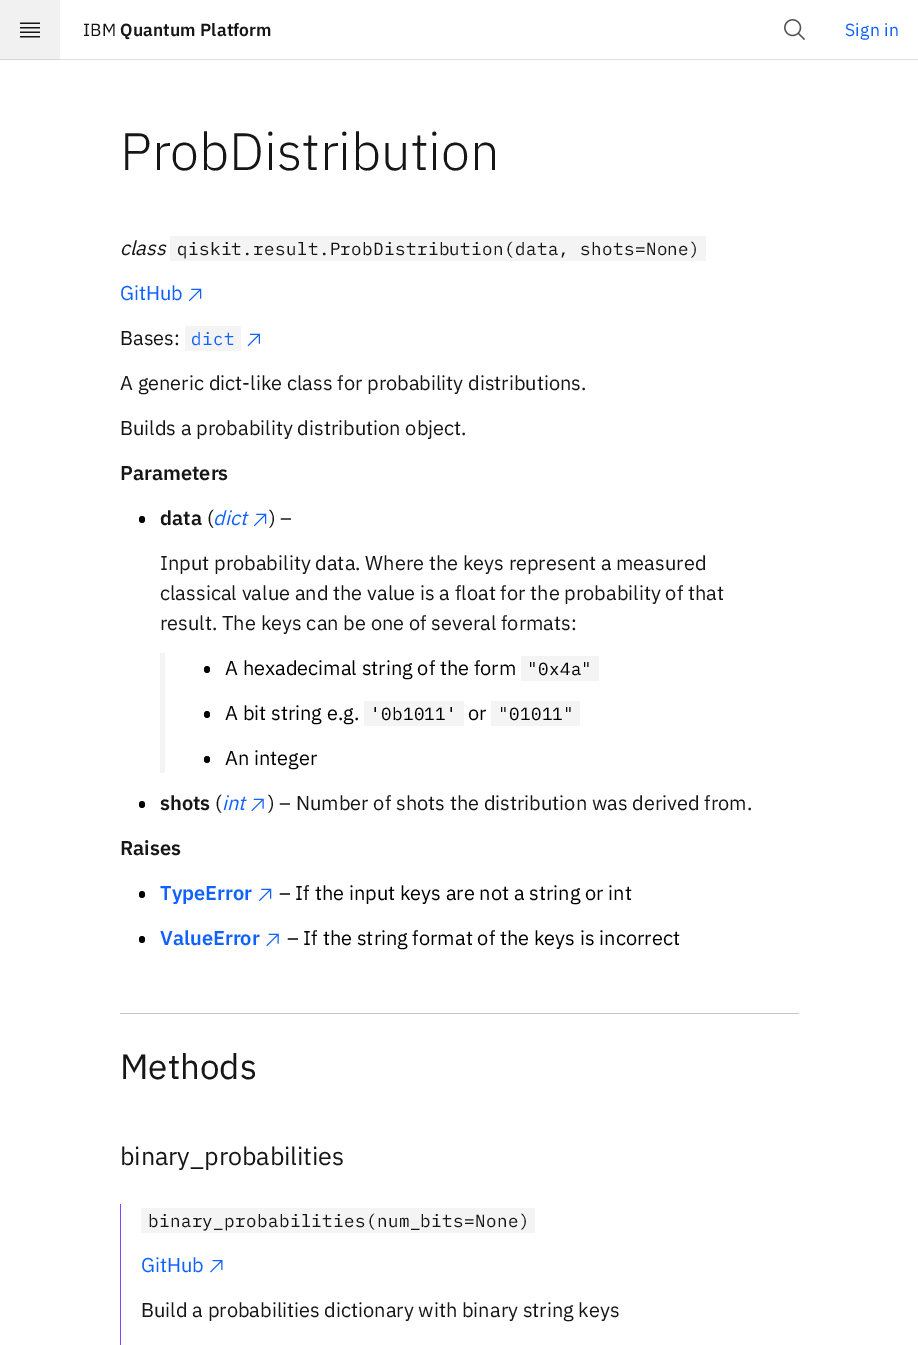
%!PS-Adobe-3.0
%%BoundingBox: 0 0 918 1345
%%LanguageLevel: 3
%%Pages: 1
%%EndComments
%%BeginProlog
/rrect { 5 dict begin { /r /h /w /y /x } { exch def } forall
  x r add y moveto x w add y 2 copy h add r arct x w add y h add x 1 index r arct
  x y h add x y r arct x y 2 copy exch w add exch r arct closepath end } def
/drawimage { 5 dict begin { /h /w /y /x /name } { exch def } forall
  gsave x y translate w h scale
  w h 8 [w 0 0 h 0 0] name (r) file false 3 colorimage grestore end } def
%%EndProlog
%%BeginSetup
<< /PageSize [918 1345] >> setpagedevice
%%EndSetup
%%Page: 1 1
0 1345 translate 1 -1 scale
4 setmiterlimit
1 setgray
0 0 918 1345 rectfill
0.945 setgray
0 0 60 59 rectfill
0.878 setgray
60 59 858 1 rectfill
0.839 setgray
0 59 60 1 rectfill
(images/1.raw) 20 22 20 16 drawimage
(images/2.raw) 784 19 21 21 drawimage
0.957 setgray
170 236 536 25 rectfill
(images/3.raw) 188 288 14 14 drawimage
185 326 56 25 rectfill
(images/4.raw) 247 333 13 14 drawimage
0 setgray
139 516 6 7 3 rrect fill
(images/3.raw) 253 513 14 14 drawimage
0.957 setgray
160 653 5 120 rectfill
0 setgray
204 666 6 7 3 rrect fill
0.957 setgray
521 656 78 25 rectfill
0 setgray
204 711 6 7 3 rrect fill
0.957 setgray
364 701 100 25 rectfill
491 701 89 25 rectfill
0 setgray
204 756 6 7 3 rrect fill
139 801 6 7 3 rrect fill
(images/5.raw) 251 798 13 14 drawimage
139 891 6 7 3 rrect fill
(images/3.raw) 258 888 14 14 drawimage
139 936 6 7 3 rrect fill
(images/5.raw) 266 933 13 14 drawimage
0.776 setgray
120 1013 679 1 rectfill
0.541 0.247 0.988 setrgbcolor
120 1204 1 141 rectfill
0.957 setgray
141 1208 394 25 rectfill
(images/6.raw) 210 1260 13 13 drawimage
/IBMPlexSans-Regular [17.5 0 0 -17.5 0 0] selectfont
0.086 setgray
83 36 moveto 0.1 0 (IBM) ashow
/IBMPlexSans-SemiBold [17.5 0 0 -17.5 0 0] selectfont
120 36 moveto 0.1 0 (Quantum Platform) ashow
/IBMPlexSans-Regular [17.5 0 0 -17.5 0 0] selectfont
0.059 0.384 0.996 setrgbcolor
845 36 moveto 0.25 0 (Sign in) ashow
/IBMPlexSans-Light [52.5 0 0 -52.5 0 0] selectfont
0.086 setgray
120 170 moveto (ProbDistribution) show
/IBMPlexSans-Italic [20 0 0 -20 0 0] selectfont
120 255 moveto (class) show
/IBMPlexMono-Regular [17.5 0 0 -17.5 0 0] selectfont
177 255 moveto 0.4 0 (qiskit.result.ProbDistribution\(data, shots=None\)) ashow
/IBMPlexSans-Regular [20 0 0 -20 0 0] selectfont
0.059 0.384 0.996 setrgbcolor
120 300 moveto (GitHub) show
0.086 setgray
120 345 moveto (Bases:) show
/IBMPlexMono-Regular [17.5 0 0 -17.5 0 0] selectfont
0.059 0.384 0.996 setrgbcolor
191 345 moveto 0.4 0 (dict) ashow
/IBMPlexSans-Regular [20 0 0 -20 0 0] selectfont
0.086 setgray
120 390 moveto (A generic dict-like class for probability distributions.) show
120 435 moveto (Builds a probability distribution object.) show
/IBMPlexSans-SemiBold [20 0 0 -20 0 0] selectfont
120 480 moveto (Parameters) show
160 525 moveto (data) show
/IBMPlexSans-Regular [20 0 0 -20 0 0] selectfont
207 525 moveto (\() show
/IBMPlexSans-Italic [20 0 0 -20 0 0] selectfont
0.059 0.384 0.996 setrgbcolor
213 525 moveto (dict) show
/IBMPlexSans-Regular [20 0 0 -20 0 0] selectfont
0.086 setgray
269 525 moveto (\) –) show
160 570 moveto (Input probability data. Where the keys represent a measured) show
160 600 moveto (classical value and the value is a float for the probability of that) show
160 630 moveto (result. The keys can be one of several formats:) show
0 setgray
225 675 moveto (A hexadecimal string of the form) show
/IBMPlexMono-Regular [17.5 0 0 -17.5 0 0] selectfont
527 675 moveto 0.4 0 ("0x4a") ashow
/IBMPlexSans-Regular [20 0 0 -20 0 0] selectfont
225 720 moveto (A bit string e.g.) show
/IBMPlexMono-Regular [17.5 0 0 -17.5 0 0] selectfont
370 720 moveto 0.4 0 ('0b1011') ashow
/IBMPlexSans-Regular [20 0 0 -20 0 0] selectfont
468 720 moveto (or) show
/IBMPlexMono-Regular [17.5 0 0 -17.5 0 0] selectfont
498 720 moveto 0.4 0 ("01011") ashow
/IBMPlexSans-Regular [20 0 0 -20 0 0] selectfont
225 765 moveto (An integer) show
/IBMPlexSans-SemiBold [20 0 0 -20 0 0] selectfont
0.086 setgray
160 810 moveto (shots) show
/IBMPlexSans-Regular [20 0 0 -20 0 0] selectfont
215 810 moveto (\() show
/IBMPlexSans-Italic [20 0 0 -20 0 0] selectfont
0.059 0.384 0.996 setrgbcolor
222 810 moveto (int) show
/IBMPlexSans-Regular [20 0 0 -20 0 0] selectfont
0.086 setgray
268 810 moveto (\) – Number of shots the distribution was derived from.) show
/IBMPlexSans-SemiBold [20 0 0 -20 0 0] selectfont
120 855 moveto (Raises) show
0.059 0.384 0.996 setrgbcolor
160 900 moveto (TypeError) show
/IBMPlexSans-Regular [20 0 0 -20 0 0] selectfont
0 setgray
279 900 moveto (– If the input keys are not a string or int) show
/IBMPlexSans-SemiBold [20 0 0 -20 0 0] selectfont
0.059 0.384 0.996 setrgbcolor
160 945 moveto (ValueError) show
/IBMPlexSans-Regular [20 0 0 -20 0 0] selectfont
0 setgray
287 945 moveto (– If the string format of the keys is incorrect) show
/IBMPlexSans-Regular [35 0 0 -35 0 0] selectfont
0.086 setgray
120 1079 moveto (Methods) show
/IBMPlexSans-Regular [25 0 0 -25 0 0] selectfont
120 1165 moveto (binary_probabilities) show
/IBMPlexMono-Regular [17.5 0 0 -17.5 0 0] selectfont
148 1227 moveto 0.4 0 (binary_probabilities\(num_bits=None\)) ashow
/IBMPlexSans-Regular [20 0 0 -20 0 0] selectfont
0.059 0.384 0.996 setrgbcolor
141 1272 moveto (GitHub) show
0.086 setgray
141 1317 moveto (Build a probabilities dictionary with binary string keys) show
showpage
%%EOF
